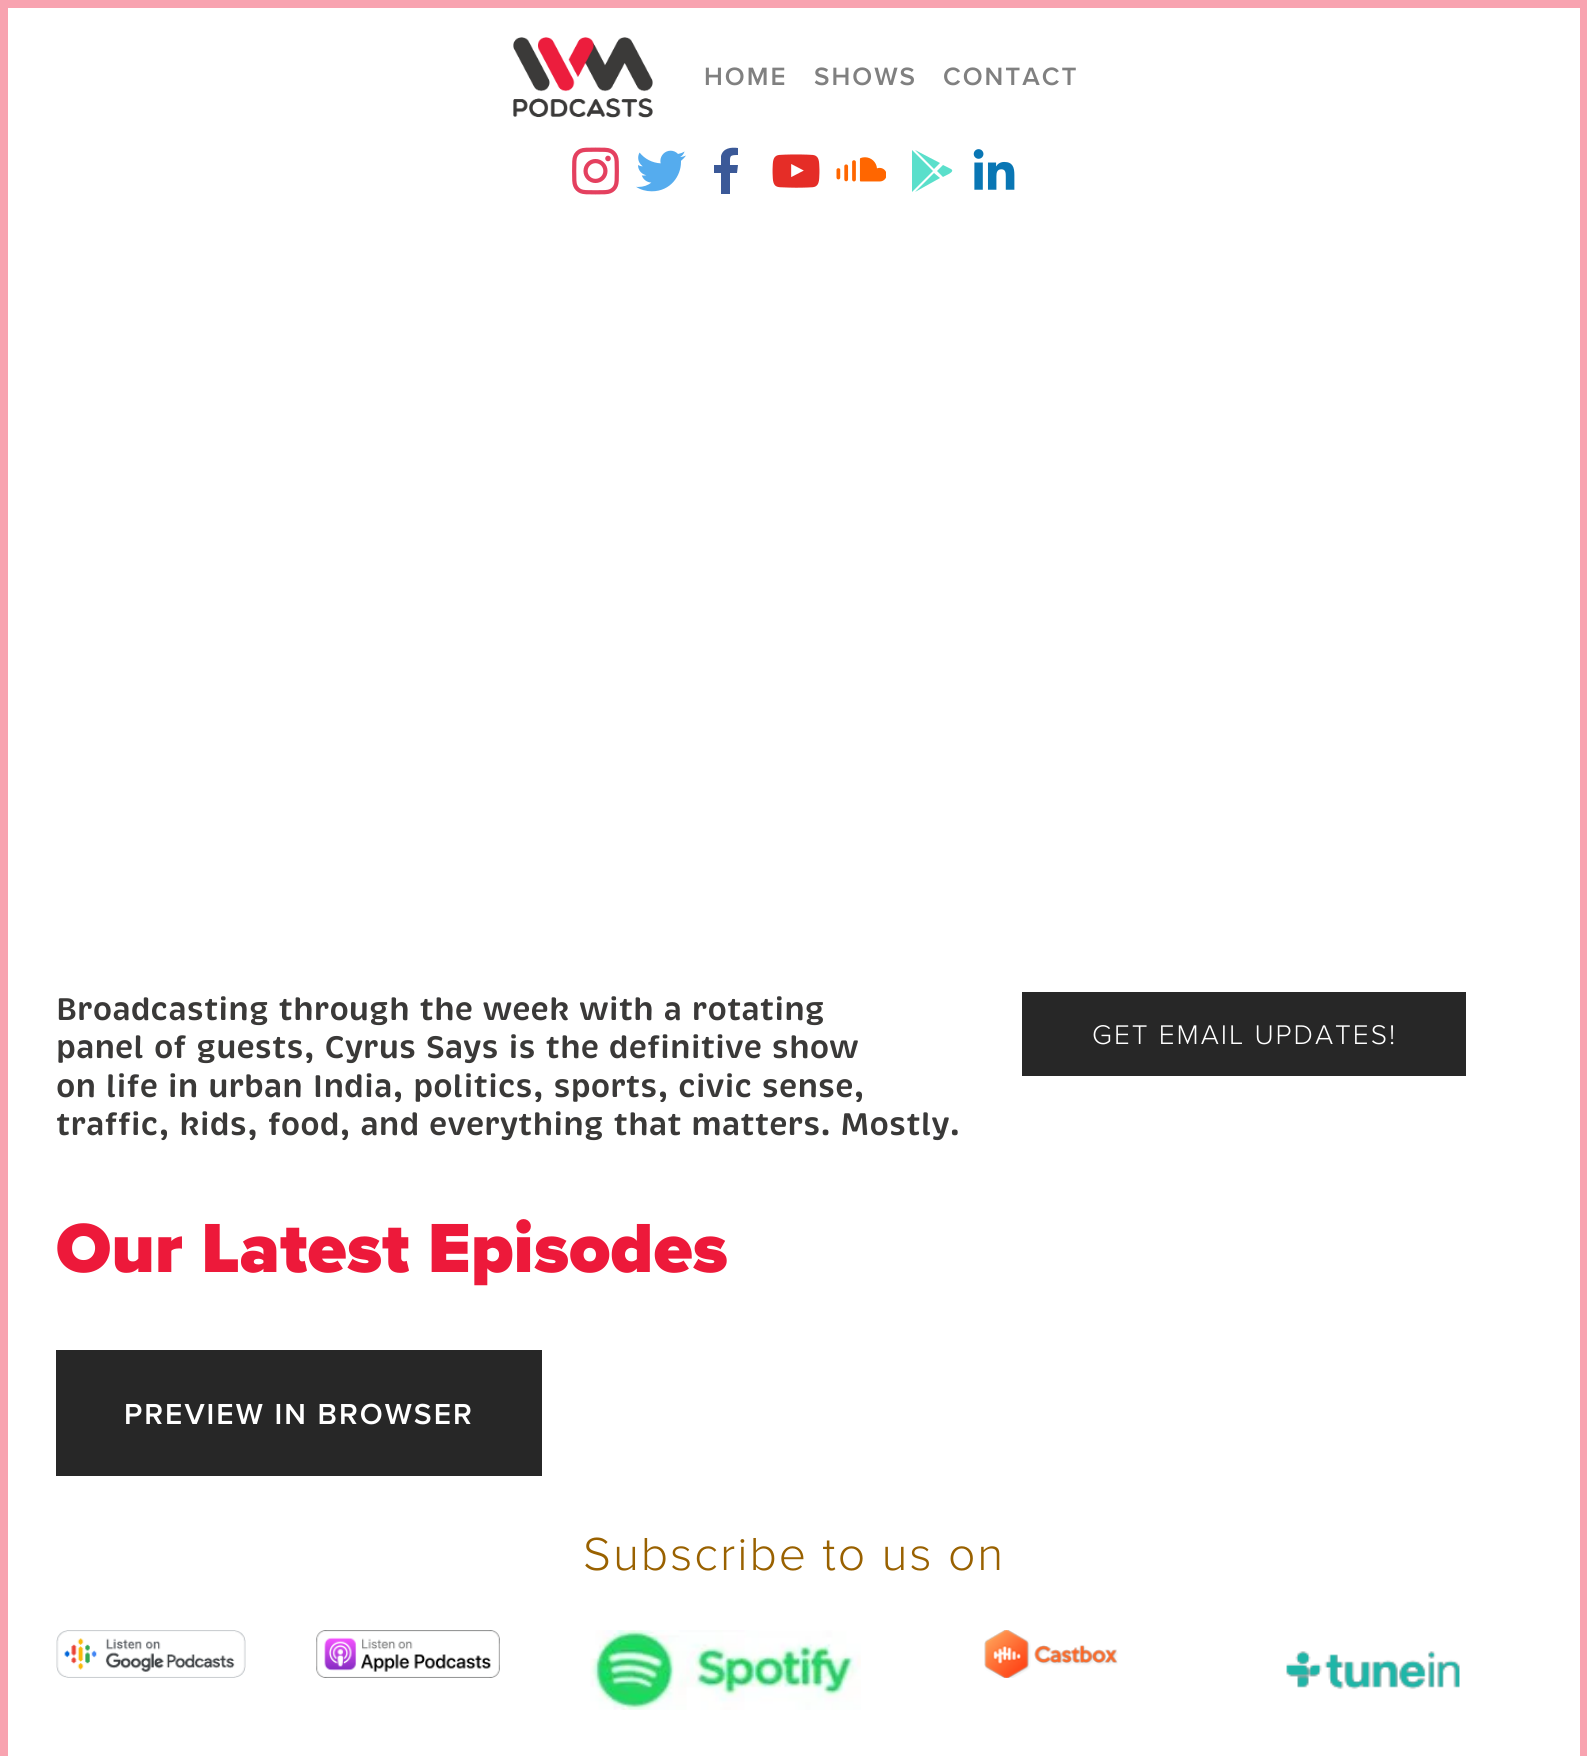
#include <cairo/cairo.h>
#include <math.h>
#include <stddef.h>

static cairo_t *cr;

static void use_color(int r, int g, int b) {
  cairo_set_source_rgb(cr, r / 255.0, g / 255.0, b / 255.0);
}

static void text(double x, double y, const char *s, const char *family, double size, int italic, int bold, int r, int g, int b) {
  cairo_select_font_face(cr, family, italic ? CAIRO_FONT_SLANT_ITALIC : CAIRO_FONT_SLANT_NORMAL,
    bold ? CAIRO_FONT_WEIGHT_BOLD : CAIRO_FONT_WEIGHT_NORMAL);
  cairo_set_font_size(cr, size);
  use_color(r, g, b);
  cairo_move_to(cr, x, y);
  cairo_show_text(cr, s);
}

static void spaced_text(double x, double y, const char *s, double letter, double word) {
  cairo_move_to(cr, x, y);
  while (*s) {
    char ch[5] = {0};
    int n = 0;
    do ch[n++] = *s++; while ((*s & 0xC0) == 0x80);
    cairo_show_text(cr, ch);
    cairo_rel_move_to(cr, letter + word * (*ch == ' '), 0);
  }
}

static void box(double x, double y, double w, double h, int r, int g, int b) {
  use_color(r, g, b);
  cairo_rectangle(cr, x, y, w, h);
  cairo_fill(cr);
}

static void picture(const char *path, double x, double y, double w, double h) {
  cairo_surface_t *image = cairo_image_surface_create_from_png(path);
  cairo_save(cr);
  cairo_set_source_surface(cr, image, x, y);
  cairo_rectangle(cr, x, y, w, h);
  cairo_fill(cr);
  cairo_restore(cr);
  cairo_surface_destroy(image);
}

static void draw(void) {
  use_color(255, 255, 255);
  cairo_paint(cr);
  cairo_rectangle(cr, 4, 4, 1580, 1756);
  use_color(248, 163, 176);
  cairo_set_line_width(cr, 8);
  cairo_stroke(cr);
  picture("img_01.png", 513, 37, 140, 81);
  picture("img_02.png", 572, 147, 47, 48);
  picture("img_03.png", 636, 150, 50, 42);
  use_color(59, 89, 152);
  cairo_new_path(cr);
  cairo_move_to(cr, 730, 194);
  cairo_line_to(cr, 730, 173);
  cairo_line_to(cr, 737, 173);
  cairo_line_to(cr, 738, 165);
  cairo_line_to(cr, 730, 165);
  cairo_curve_to(cr, 730, 156, 729, 155, 738, 155);
  cairo_line_to(cr, 738, 148);
  cairo_curve_to(cr, 731, 147, 723, 148, 721, 156);
  cairo_line_to(cr, 721, 165);
  cairo_line_to(cr, 714, 165);
  cairo_line_to(cr, 714, 173);
  cairo_line_to(cr, 721, 173);
  cairo_line_to(cr, 721, 194);
  cairo_close_path(cr);
  cairo_fill(cr);
  picture("img_04.png", 772, 154, 48, 34);
  picture("img_05.png", 836, 157, 50, 25);
  use_color(90, 223, 203);
  cairo_new_path(cr);
  cairo_move_to(cr, 915, 192);
  cairo_line_to(cr, 940, 178);
  cairo_line_to(cr, 934, 173);
  cairo_close_path(cr);
  cairo_move_to(cr, 912, 150);
  cairo_line_to(cr, 912, 192);
  cairo_line_to(cr, 933, 171);
  cairo_close_path(cr);
  cairo_move_to(cr, 951, 169);
  cairo_line_to(cr, 943, 165);
  cairo_line_to(cr, 937, 171);
  cairo_line_to(cr, 943, 177);
  cairo_curve_to(cr, 944, 176, 956, 172, 951, 169);
  cairo_close_path(cr);
  cairo_move_to(cr, 940, 163);
  cairo_line_to(cr, 915, 150);
  cairo_line_to(cr, 934, 169);
  cairo_close_path(cr);
  cairo_fill(cr);
  picture("img_06.png", 973, 149, 42, 41);
  box(1022, 992, 444, 84, 39, 39, 39);
  box(56, 1350, 486, 126, 39, 39, 39);
  picture("img_07.png", 56, 1630, 190, 48);
  picture("img_08.png", 316, 1630, 184, 48);
  picture("img_09.png", 590, 1630, 271, 80);
  picture("img_10.png", 984, 1630, 134, 48);
  picture("img_11.png", 1286, 1651, 174, 39);
  cairo_select_font_face(cr, "Proxima Nova SemiBold", CAIRO_FONT_SLANT_NORMAL, CAIRO_FONT_WEIGHT_NORMAL);
  cairo_set_font_size(cr, 26);
  use_color(128, 128, 128);
  spaced_text(704, 85, "HOME", 2, 0);
  spaced_text(814, 85, "SHOWS", 2, 0);
  spaced_text(943, 85, "CONTACT", 2, 0);
  text(56, 1020, "Broadcasting through the week with a rotating", "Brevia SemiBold", 32, 0, 0, 58, 57, 56);
  text(56, 1058, "panel of guests, Cyrus Says is the definitive show", "Brevia SemiBold", 32, 0, 0, 58, 57, 56);
  text(56, 1097, "on life in urban India, politics, sports, civic sense,", "Brevia SemiBold", 32, 0, 0, 58, 57, 56);
  text(56, 1135, "traffic, kids, food, and everything that matters. Mostly.", "Brevia SemiBold", 32, 0, 0, 58, 57, 56);
  text(56, 1272, "Our Latest Episodes", "Proxima Nova Black", 72, 0, 0, 237, 25, 58);
  cairo_select_font_face(cr, "Proxima Nova Light", CAIRO_FONT_SLANT_NORMAL, CAIRO_FONT_WEIGHT_NORMAL);
  cairo_set_font_size(cr, 28);
  use_color(255, 255, 255);
  spaced_text(1092, 1044, "GET EMAIL UPDATES!", 2, 0);
  cairo_select_font_face(cr, "Proxima Nova SemiBold", CAIRO_FONT_SLANT_NORMAL, CAIRO_FONT_WEIGHT_NORMAL);
  cairo_set_font_size(cr, 30);
  spaced_text(124, 1424, "PREVIEW IN BROWSER", 2, 0);
  cairo_select_font_face(cr, "Proxima Nova Light", CAIRO_FONT_SLANT_NORMAL, CAIRO_FONT_WEIGHT_NORMAL);
  cairo_set_font_size(cr, 48);
  use_color(153, 97, 0);
  spaced_text(583, 1570, "Subscribe to us on", 2, 0);
}

int main(void) {
  cairo_surface_t *surface = cairo_image_surface_create(CAIRO_FORMAT_RGB24, 1587, 1756);
  cr = cairo_create(surface);
  cairo_font_options_t *options = cairo_font_options_create();
  cairo_font_options_set_hint_metrics(options, CAIRO_HINT_METRICS_OFF);
  cairo_font_options_set_hint_style(options, CAIRO_HINT_STYLE_NONE);
  cairo_set_font_options(cr, options);
  cairo_set_miter_limit(cr, 4);
  draw();
  cairo_surface_write_to_png(surface, "out.png");
  cairo_font_options_destroy(options);
  cairo_destroy(cr);
  cairo_surface_destroy(surface);
  return 0;
}
